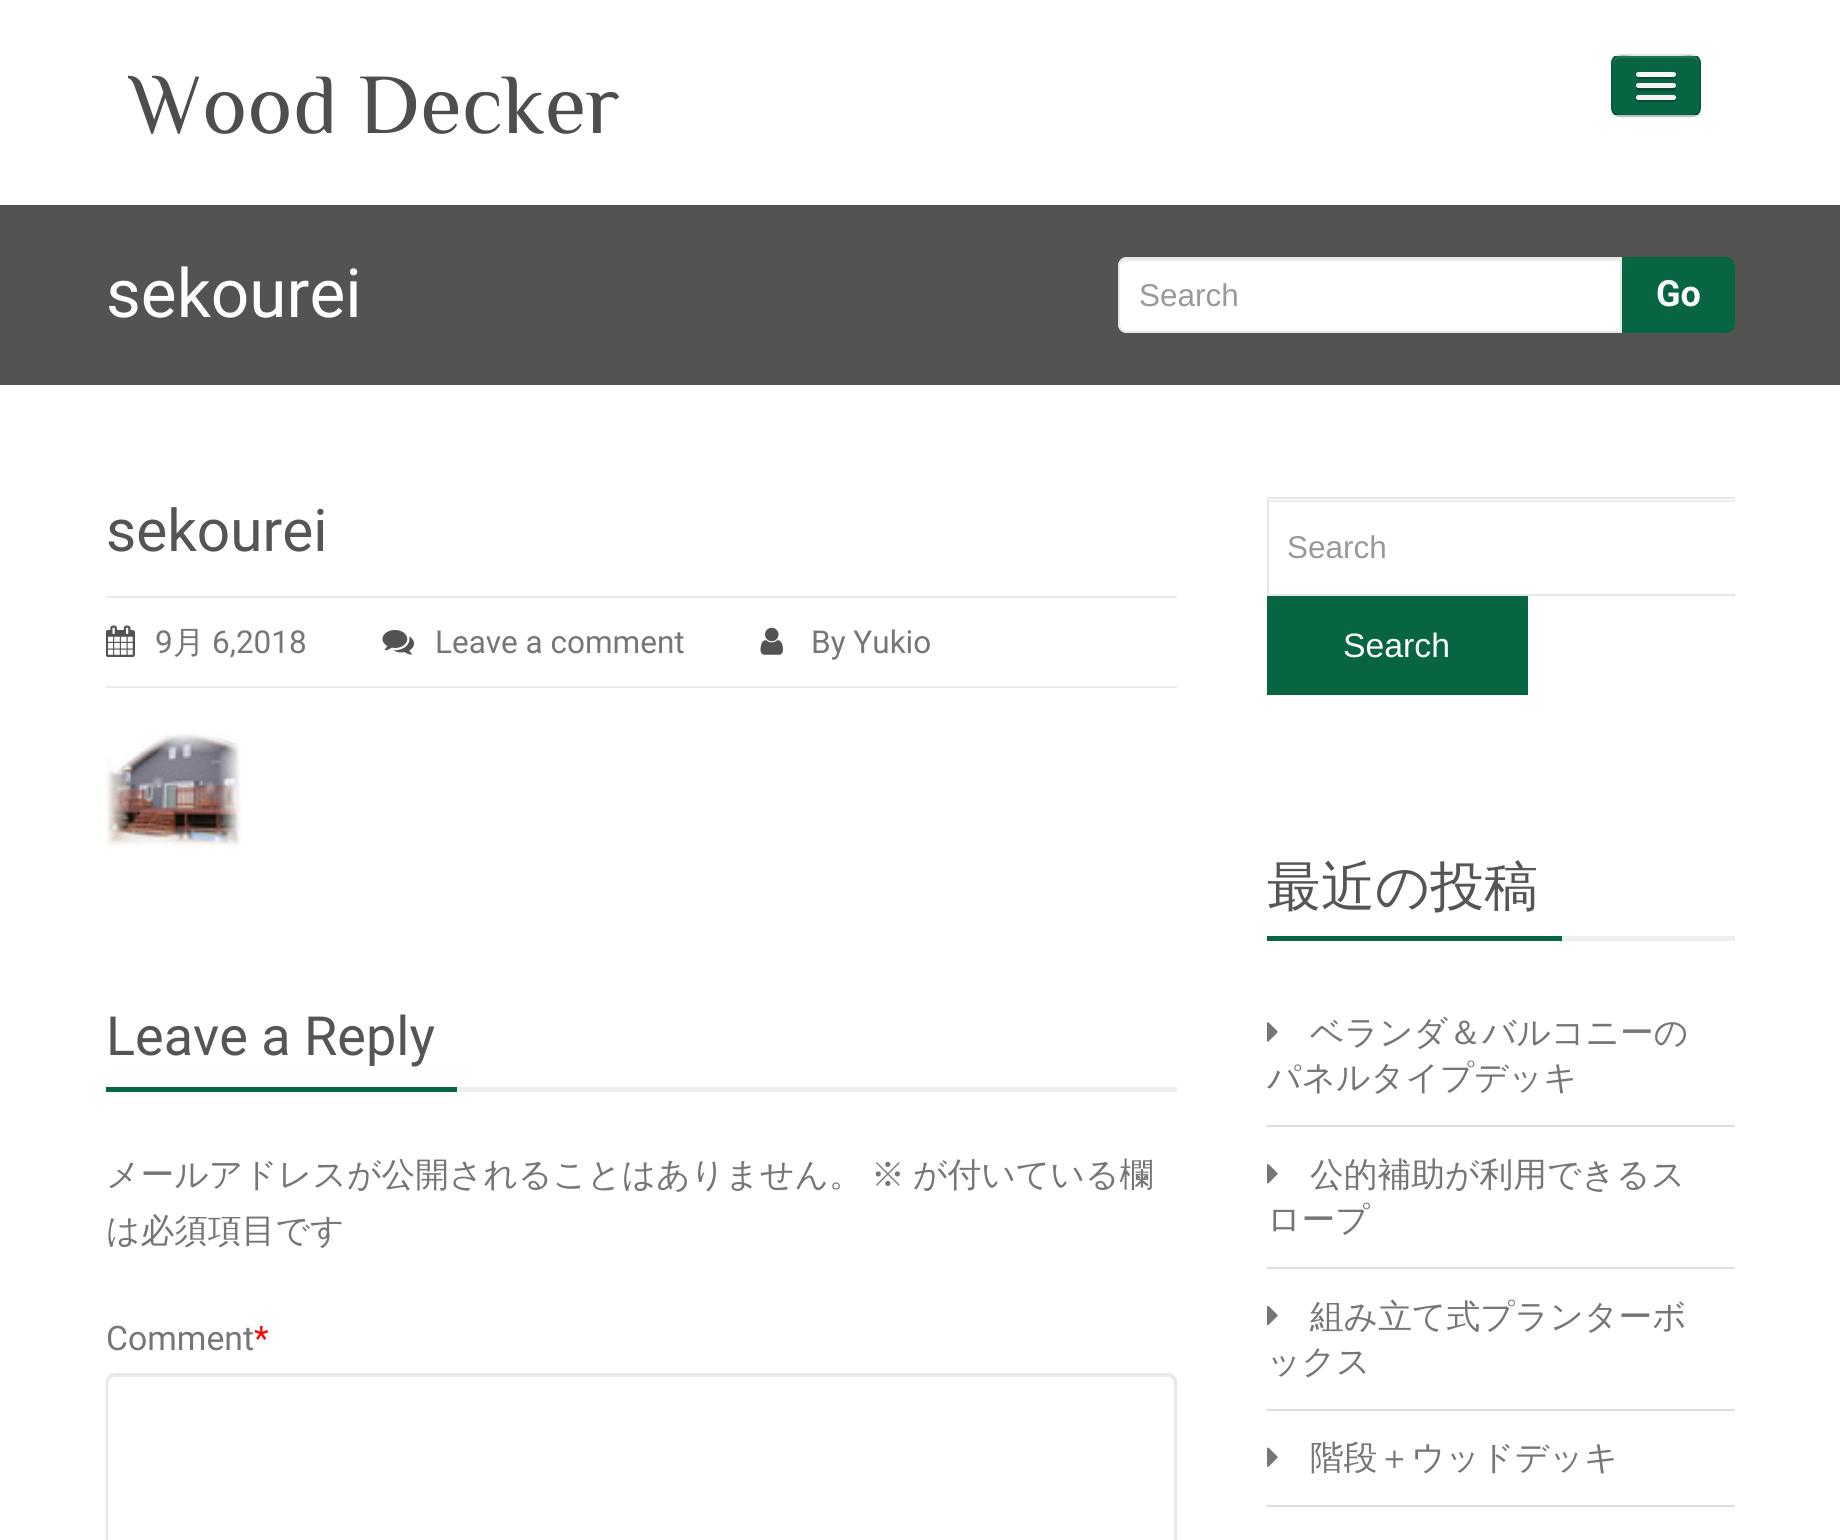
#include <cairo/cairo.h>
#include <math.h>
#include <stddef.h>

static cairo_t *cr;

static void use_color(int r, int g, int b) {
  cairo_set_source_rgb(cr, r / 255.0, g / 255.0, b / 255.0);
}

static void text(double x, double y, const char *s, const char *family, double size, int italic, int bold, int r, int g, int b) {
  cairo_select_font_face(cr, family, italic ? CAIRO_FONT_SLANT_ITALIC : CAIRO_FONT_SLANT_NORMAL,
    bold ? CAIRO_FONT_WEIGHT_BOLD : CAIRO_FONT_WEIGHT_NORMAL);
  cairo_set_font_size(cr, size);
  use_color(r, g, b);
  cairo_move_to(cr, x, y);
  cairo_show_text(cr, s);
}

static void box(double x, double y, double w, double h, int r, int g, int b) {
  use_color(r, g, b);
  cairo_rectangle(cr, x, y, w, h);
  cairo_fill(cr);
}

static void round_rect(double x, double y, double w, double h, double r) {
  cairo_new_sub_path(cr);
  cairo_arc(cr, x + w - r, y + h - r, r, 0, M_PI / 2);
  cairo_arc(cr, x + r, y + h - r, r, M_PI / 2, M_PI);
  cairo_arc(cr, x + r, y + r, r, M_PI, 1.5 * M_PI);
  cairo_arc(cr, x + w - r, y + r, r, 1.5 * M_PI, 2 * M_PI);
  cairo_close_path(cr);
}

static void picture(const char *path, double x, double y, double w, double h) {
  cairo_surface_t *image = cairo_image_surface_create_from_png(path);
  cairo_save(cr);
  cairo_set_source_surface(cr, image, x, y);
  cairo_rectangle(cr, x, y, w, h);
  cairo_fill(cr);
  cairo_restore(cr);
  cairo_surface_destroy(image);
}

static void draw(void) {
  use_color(255, 255, 255);
  cairo_paint(cr);
  cairo_save(cr);
  round_rect(1611, 54, 90, 63, 9);
  cairo_clip(cr);
  box(1611, 56, 90, 59, 7, 102, 65);
  cairo_restore(cr);
  use_color(32, 117, 84);
  cairo_new_path(cr);
  cairo_move_to(cr, 1620, 58);
  cairo_line_to(cr, 1692, 58);
  cairo_curve_to(cr, 1696, 58, 1699, 62, 1699, 65);
  cairo_curve_to(cr, 1699, 53, 1689, 56, 1680, 56);
  cairo_line_to(cr, 1632, 56);
  cairo_curve_to(cr, 1623, 56, 1613, 53, 1613, 65);
  cairo_curve_to(cr, 1613, 62, 1616, 58, 1620, 58);
  cairo_close_path(cr);
  cairo_fill(cr);
  cairo_new_path(cr);
  cairo_move_to(cr, 1697.5, 113.5);
  cairo_curve_to(cr, 1696, 115, 1694, 116, 1692, 116);
  cairo_line_to(cr, 1620, 116);
  cairo_curve_to(cr, 1618, 116, 1616, 115, 1614.5, 113.5);
  cairo_set_source_rgba(cr, 0, 0, 0, 0.25);
  cairo_set_line_width(cr, 2.2);
  cairo_stroke(cr);
  cairo_new_path(cr);
  cairo_move_to(cr, 1614.5, 113.5);
  cairo_curve_to(cr, 1613, 112, 1612, 110, 1612, 108);
  cairo_line_to(cr, 1612, 63);
  cairo_curve_to(cr, 1612, 61, 1613, 59, 1614.5, 57.5);
  cairo_curve_to(cr, 1616, 56, 1618, 55, 1620, 55);
  cairo_line_to(cr, 1692, 55);
  cairo_curve_to(cr, 1694, 55, 1696, 56, 1697.5, 57.5);
  cairo_curve_to(cr, 1699, 59, 1700, 61, 1700, 63);
  cairo_line_to(cr, 1700, 108);
  cairo_curve_to(cr, 1700, 110, 1699, 112, 1697.5, 113.5);
  cairo_set_source_rgba(cr, 0, 0, 0, 0.1);
  cairo_stroke(cr);
  use_color(5, 77, 49);
  cairo_new_path(cr);
  cairo_move_to(cr, 1636, 76);
  cairo_curve_to(cr, 1634, 80, 1643, 79, 1644, 79);
  cairo_line_to(cr, 1668, 79);
  cairo_curve_to(cr, 1669, 79, 1678, 80, 1676, 76);
  cairo_line_to(cr, 1674, 76);
  cairo_line_to(cr, 1638, 76);
  cairo_close_path(cr);
  cairo_fill(cr);
  use_color(245, 245, 245);
  round_rect(1636, 72, 40, 5, 2.5);
  cairo_fill(cr);
  use_color(5, 77, 49);
  cairo_new_path(cr);
  cairo_move_to(cr, 1636, 87);
  cairo_curve_to(cr, 1633, 92, 1644, 91, 1644, 91);
  cairo_line_to(cr, 1668, 91);
  cairo_curve_to(cr, 1668, 91, 1679, 92, 1676, 87);
  cairo_curve_to(cr, 1674, 88, 1638, 88, 1636, 87);
  cairo_close_path(cr);
  cairo_fill(cr);
  use_color(245, 245, 245);
  round_rect(1636, 83, 40, 5, 2.5);
  cairo_fill(cr);
  use_color(5, 77, 49);
  cairo_new_path(cr);
  cairo_move_to(cr, 1636, 98);
  cairo_curve_to(cr, 1634, 103, 1644, 102, 1644, 102);
  cairo_line_to(cr, 1668, 102);
  cairo_curve_to(cr, 1668, 102, 1678, 103, 1676, 98);
  cairo_curve_to(cr, 1674, 100, 1638, 100, 1636, 98);
  cairo_close_path(cr);
  cairo_fill(cr);
  use_color(245, 245, 245);
  round_rect(1636, 95, 40, 5, 2.5);
  cairo_fill(cr);
  box(0, 205, 1840, 180, 83, 83, 84);
  use_color(255, 255, 255);
  cairo_new_path(cr);
  cairo_move_to(cr, 1127, 257);
  cairo_line_to(cr, 1622, 257);
  cairo_line_to(cr, 1622, 333);
  cairo_line_to(cr, 1127, 333);
  cairo_curve_to(cr, 1122, 333, 1118, 329, 1118, 324);
  cairo_line_to(cr, 1118, 266);
  cairo_curve_to(cr, 1118, 261, 1122, 257, 1127, 257);
  cairo_close_path(cr);
  cairo_fill(cr);
  use_color(236, 236, 236);
  cairo_new_path(cr);
  cairo_move_to(cr, 1127, 261);
  cairo_line_to(cr, 1620, 261);
  cairo_line_to(cr, 1620, 259);
  cairo_line_to(cr, 1128, 259);
  cairo_curve_to(cr, 1125, 259, 1122, 261, 1121, 264);
  cairo_curve_to(cr, 1123, 262, 1125, 261, 1127, 261);
  cairo_close_path(cr);
  cairo_fill(cr);
  cairo_new_path(cr);
  cairo_move_to(cr, 1127, 258);
  cairo_line_to(cr, 1621, 258);
  cairo_line_to(cr, 1621, 332);
  cairo_line_to(cr, 1127, 332);
  cairo_curve_to(cr, 1122.5, 332, 1119, 328.5, 1119, 324);
  cairo_line_to(cr, 1119, 266);
  cairo_curve_to(cr, 1119, 261.5, 1122.5, 258, 1127, 258);
  cairo_close_path(cr);
  use_color(228, 232, 234);
  cairo_set_line_width(cr, 2);
  cairo_stroke(cr);
  use_color(7, 102, 65);
  cairo_new_path(cr);
  cairo_move_to(cr, 1622, 257);
  cairo_line_to(cr, 1726, 257);
  cairo_curve_to(cr, 1731, 257, 1735, 261, 1735, 266);
  cairo_line_to(cr, 1735, 324);
  cairo_curve_to(cr, 1735, 329, 1731, 333, 1726, 333);
  cairo_line_to(cr, 1622, 333);
  cairo_close_path(cr);
  cairo_fill(cr);
  box(106, 596, 1071, 2, 235, 234, 234);
  box(106, 686, 1071, 2, 235, 234, 234);
  picture("img_01.png", 106, 625, 29, 32);
  picture("img_02.png", 382, 630, 32, 25);
  picture("img_03.png", 760, 627, 23, 28);
  picture("img_04.png", 106, 733, 135, 113);
  box(457, 1087, 720, 5, 238, 238, 238);
  box(106, 1087, 351, 5, 7, 102, 65);
  use_color(236, 236, 236);
  cairo_new_path(cr);
  cairo_move_to(cr, 115, 1377);
  cairo_line_to(cr, 1168, 1377);
  cairo_curve_to(cr, 1171, 1377, 1174, 1380, 1174, 1384);
  cairo_line_to(cr, 1174, 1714);
  cairo_curve_to(cr, 1175, 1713, 1175, 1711, 1175, 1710);
  cairo_line_to(cr, 1175, 1382);
  cairo_curve_to(cr, 1175, 1378, 1172, 1375, 1168, 1375);
  cairo_line_to(cr, 115, 1375);
  cairo_curve_to(cr, 111, 1375, 108, 1378, 108, 1382);
  cairo_line_to(cr, 108, 1384);
  cairo_curve_to(cr, 108, 1380, 111, 1377, 115, 1377);
  cairo_close_path(cr);
  cairo_fill(cr);
  round_rect(107, 1374, 1069, 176, 8);
  use_color(228, 232, 234);
  cairo_stroke(cr);
  box(1269, 500, 466, 2, 236, 236, 236);
  cairo_save(cr);
  cairo_rectangle(cr, 1267, 497, 468, 243);
  cairo_clip(cr);
  cairo_rectangle(cr, 1268, 498, 502, 97);
  use_color(228, 232, 234);
  cairo_stroke(cr);
  cairo_restore(cr);
  box(1267, 596, 261, 99, 7, 102, 65);
  box(1562, 936, 173, 5, 238, 238, 238);
  box(1267, 936, 295, 5, 7, 102, 65);
  box(1267, 1125, 468, 2, 222, 222, 222);
  picture("img_05.png", 1267, 1022, 11, 20);
  box(1267, 1267, 468, 2, 222, 222, 222);
  picture("img_06.png", 1267, 1164, 11, 20);
  box(1267, 1409, 468, 2, 222, 222, 222);
  picture("img_07.png", 1267, 1305, 11, 20);
  box(1267, 1505, 468, 2, 222, 222, 222);
  picture("img_08.png", 1267, 1447, 11, 20);
  cairo_save(cr);
  cairo_rectangle(cr, 128, 32, 493, 119);
  cairo_clip(cr);
  text(128, 133, "Wood Decker", "Philosopher", 85.5, 0, 0, 77, 78, 79);
  cairo_restore(cr);
  text(106, 317, "sekourei", "Roboto", 67.5, 0, 0, 255, 255, 255);
  text(1139, 306, "Search", "Liberation Sans", 31.5, 0, 0, 153, 153, 153);
  text(1656, 306, "Go", "Roboto", 36, 0, 1, 255, 255, 255);
  text(106, 551, "sekourei", "Roboto", 58.5, 0, 0, 85, 85, 85);
  text(155, 653, "9", "Roboto", 31.5, 0, 0, 118, 118, 118);
  text(173, 653, "月", "WenQuanYi Zen Hei Medium", 31.5, 0, 0, 118, 118, 118);
  text(212, 653, "6,2018", "Roboto", 31.5, 0, 0, 118, 118, 118);
  text(435, 653, "Leave a comment", "Roboto", 31.5, 0, 0, 118, 118, 118);
  text(811, 653, "By Yukio", "Roboto", 31.5, 0, 0, 118, 118, 118);
  text(106, 1055, "Leave a Reply", "Roboto", 54, 0, 0, 85, 85, 85);
  text(106, 1186, "メールアドレスが公開されることはありません。", "WenQuanYi Zen Hei Medium", 33.75, 0, 0, 118, 118, 118);
  text(871, 1186, "※", "WenQuanYi Zen Hei Medium", 33.75, 0, 0, 118, 118, 118);
  text(913, 1186, "が付いている欄", "WenQuanYi Zen Hei Medium", 33.75, 0, 0, 118, 118, 118);
  text(106, 1242, "は必須項目です", "WenQuanYi Zen Hei Medium", 33.75, 0, 0, 118, 118, 118);
  text(106, 1350, "Comment", "Roboto", 33.75, 0, 0, 118, 118, 118);
  text(254, 1350, "*", "Roboto", 33.75, 0, 0, 255, 0, 0);
  text(1287, 558, "Search", "Liberation Sans", 31.5, 0, 0, 153, 153, 153);
  text(1343, 657, "Search", "Liberation Sans", 33.75, 0, 0, 255, 255, 255);
  text(1267, 905, "最近の投稿", "WenQuanYi Zen Hei Medium", 54, 0, 0, 85, 85, 85);
  text(1310, 1044, "ベランダ＆バルコニーの", "WenQuanYi Zen Hei Medium", 33.75, 0, 0, 118, 118, 118);
  text(1267, 1089, "パネルタイプデッキ", "WenQuanYi Zen Hei Medium", 33.75, 0, 0, 118, 118, 118);
  text(1310, 1186, "公的補助が利用できるス", "WenQuanYi Zen Hei Medium", 33.75, 0, 0, 118, 118, 118);
  text(1267, 1231, "ロープ", "WenQuanYi Zen Hei Medium", 33.75, 0, 0, 118, 118, 118);
  text(1310, 1328, "組み立て式プランターボ", "WenQuanYi Zen Hei Medium", 33.75, 0, 0, 118, 118, 118);
  text(1267, 1373, "ックス", "WenQuanYi Zen Hei Medium", 33.75, 0, 0, 118, 118, 118);
  text(1310, 1469, "階段＋ウッドデッキ", "WenQuanYi Zen Hei Medium", 33.75, 0, 0, 118, 118, 118);
}

int main(void) {
  cairo_surface_t *surface = cairo_image_surface_create(CAIRO_FORMAT_RGB24, 1840, 1540);
  cr = cairo_create(surface);
  cairo_font_options_t *options = cairo_font_options_create();
  cairo_font_options_set_hint_metrics(options, CAIRO_HINT_METRICS_OFF);
  cairo_font_options_set_hint_style(options, CAIRO_HINT_STYLE_NONE);
  cairo_set_font_options(cr, options);
  cairo_set_miter_limit(cr, 4);
  draw();
  cairo_surface_write_to_png(surface, "out.png");
  cairo_font_options_destroy(options);
  cairo_destroy(cr);
  cairo_surface_destroy(surface);
  return 0;
}
